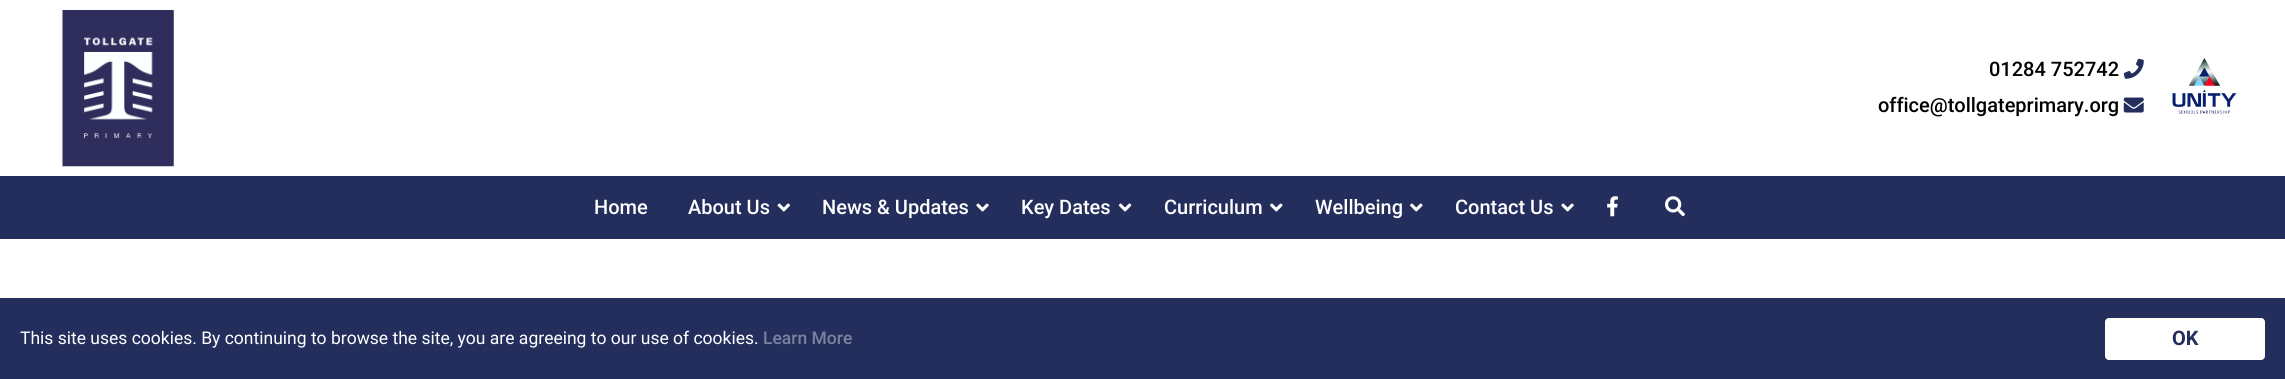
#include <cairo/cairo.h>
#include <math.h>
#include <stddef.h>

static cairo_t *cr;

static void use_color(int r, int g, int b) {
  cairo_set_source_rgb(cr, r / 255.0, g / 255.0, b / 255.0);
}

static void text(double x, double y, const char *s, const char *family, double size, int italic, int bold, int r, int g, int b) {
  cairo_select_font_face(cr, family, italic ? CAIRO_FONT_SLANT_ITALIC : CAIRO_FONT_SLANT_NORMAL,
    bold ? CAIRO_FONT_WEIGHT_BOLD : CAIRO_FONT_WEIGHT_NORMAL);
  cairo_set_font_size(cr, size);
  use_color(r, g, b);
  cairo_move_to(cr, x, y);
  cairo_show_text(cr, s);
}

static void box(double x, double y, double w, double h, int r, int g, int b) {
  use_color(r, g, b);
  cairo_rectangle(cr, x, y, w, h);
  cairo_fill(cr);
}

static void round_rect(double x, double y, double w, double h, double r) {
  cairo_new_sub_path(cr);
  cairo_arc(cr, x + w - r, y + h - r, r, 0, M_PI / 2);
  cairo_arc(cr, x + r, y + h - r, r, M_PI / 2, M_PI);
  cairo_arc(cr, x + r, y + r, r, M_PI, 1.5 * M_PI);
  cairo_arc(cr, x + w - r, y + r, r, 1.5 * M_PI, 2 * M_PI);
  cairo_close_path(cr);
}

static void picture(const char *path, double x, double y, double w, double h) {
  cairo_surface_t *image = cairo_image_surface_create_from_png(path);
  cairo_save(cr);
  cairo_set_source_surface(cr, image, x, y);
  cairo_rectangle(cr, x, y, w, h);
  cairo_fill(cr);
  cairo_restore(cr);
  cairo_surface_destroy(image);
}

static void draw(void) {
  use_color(255, 255, 255);
  cairo_paint(cr);
  picture("img_01.png", 62, 10, 112, 157);
  picture("img_02.png", 2123, 58, 21, 21);
  picture("img_03.png", 2123, 97, 21, 16);
  picture("img_04.png", 2172, 58, 65, 56);
  box(0, 176, 2285, 63, 35, 46, 93);
  picture("img_05.png", 777, 203, 13, 9);
  picture("img_06.png", 976, 203, 13, 9);
  picture("img_07.png", 1118, 203, 14, 9);
  picture("img_08.png", 1270, 203, 13, 9);
  picture("img_08.png", 1410, 203, 13, 9);
  picture("img_06.png", 1561, 203, 13, 9);
  picture("img_09.png", 1607, 196, 11, 21);
  picture("img_10.png", 1665, 196, 20, 21);
  box(0, 298, 2285, 81, 35, 46, 93);
  use_color(255, 255, 255);
  round_rect(2105, 318, 160, 42, 4);
  cairo_fill(cr);
  text(1989, 76, "01284 752742", "Roboto Medium", 20, 0, 0, 0, 0, 0);
  text(1878, 112, "office@tollgateprimary.org", "Roboto Medium", 20, 0, 0, 0, 0, 0);
  text(594, 214, "Home", "Roboto Medium", 20, 0, 0, 255, 255, 255);
  text(688, 214, "About Us", "Roboto Medium", 20, 0, 0, 255, 255, 255);
  text(822, 214, "News & Updates", "Roboto Medium", 20, 0, 0, 255, 255, 255);
  text(1021, 214, "Key Dates", "Roboto Medium", 20, 0, 0, 255, 255, 255);
  text(1164, 214, "Curriculum", "Roboto Medium", 20, 0, 0, 255, 255, 255);
  text(1315, 214, "Wellbeing", "Roboto Medium", 20, 0, 0, 255, 255, 255);
  text(1455, 214, "Contact Us", "Roboto Medium", 20, 0, 0, 255, 255, 255);
  text(20, 344, "This site uses cookies. By continuing to browse the site, you are agreeing to our use of cookies.", "Roboto", 17.5, 0, 0, 255, 255, 255);
  text(763, 344, "Learn More", "Roboto Medium", 17.5, 0, 0, 123, 130, 158);
  text(2172, 345, "OK", "Roboto", 20, 0, 1, 35, 46, 93);
}

int main(void) {
  cairo_surface_t *surface = cairo_image_surface_create(CAIRO_FORMAT_RGB24, 2285, 379);
  cr = cairo_create(surface);
  cairo_font_options_t *options = cairo_font_options_create();
  cairo_font_options_set_hint_metrics(options, CAIRO_HINT_METRICS_OFF);
  cairo_font_options_set_hint_style(options, CAIRO_HINT_STYLE_NONE);
  cairo_set_font_options(cr, options);
  cairo_set_miter_limit(cr, 4);
  draw();
  cairo_surface_write_to_png(surface, "out.png");
  cairo_font_options_destroy(options);
  cairo_destroy(cr);
  cairo_surface_destroy(surface);
  return 0;
}
